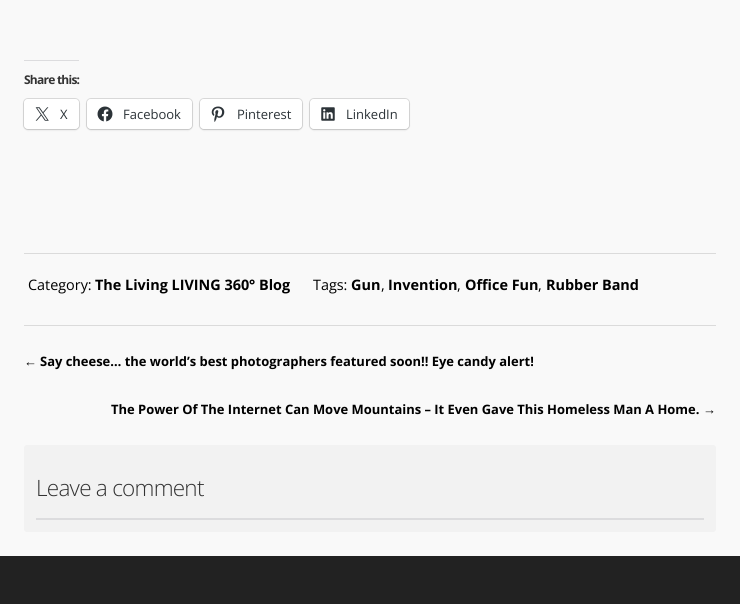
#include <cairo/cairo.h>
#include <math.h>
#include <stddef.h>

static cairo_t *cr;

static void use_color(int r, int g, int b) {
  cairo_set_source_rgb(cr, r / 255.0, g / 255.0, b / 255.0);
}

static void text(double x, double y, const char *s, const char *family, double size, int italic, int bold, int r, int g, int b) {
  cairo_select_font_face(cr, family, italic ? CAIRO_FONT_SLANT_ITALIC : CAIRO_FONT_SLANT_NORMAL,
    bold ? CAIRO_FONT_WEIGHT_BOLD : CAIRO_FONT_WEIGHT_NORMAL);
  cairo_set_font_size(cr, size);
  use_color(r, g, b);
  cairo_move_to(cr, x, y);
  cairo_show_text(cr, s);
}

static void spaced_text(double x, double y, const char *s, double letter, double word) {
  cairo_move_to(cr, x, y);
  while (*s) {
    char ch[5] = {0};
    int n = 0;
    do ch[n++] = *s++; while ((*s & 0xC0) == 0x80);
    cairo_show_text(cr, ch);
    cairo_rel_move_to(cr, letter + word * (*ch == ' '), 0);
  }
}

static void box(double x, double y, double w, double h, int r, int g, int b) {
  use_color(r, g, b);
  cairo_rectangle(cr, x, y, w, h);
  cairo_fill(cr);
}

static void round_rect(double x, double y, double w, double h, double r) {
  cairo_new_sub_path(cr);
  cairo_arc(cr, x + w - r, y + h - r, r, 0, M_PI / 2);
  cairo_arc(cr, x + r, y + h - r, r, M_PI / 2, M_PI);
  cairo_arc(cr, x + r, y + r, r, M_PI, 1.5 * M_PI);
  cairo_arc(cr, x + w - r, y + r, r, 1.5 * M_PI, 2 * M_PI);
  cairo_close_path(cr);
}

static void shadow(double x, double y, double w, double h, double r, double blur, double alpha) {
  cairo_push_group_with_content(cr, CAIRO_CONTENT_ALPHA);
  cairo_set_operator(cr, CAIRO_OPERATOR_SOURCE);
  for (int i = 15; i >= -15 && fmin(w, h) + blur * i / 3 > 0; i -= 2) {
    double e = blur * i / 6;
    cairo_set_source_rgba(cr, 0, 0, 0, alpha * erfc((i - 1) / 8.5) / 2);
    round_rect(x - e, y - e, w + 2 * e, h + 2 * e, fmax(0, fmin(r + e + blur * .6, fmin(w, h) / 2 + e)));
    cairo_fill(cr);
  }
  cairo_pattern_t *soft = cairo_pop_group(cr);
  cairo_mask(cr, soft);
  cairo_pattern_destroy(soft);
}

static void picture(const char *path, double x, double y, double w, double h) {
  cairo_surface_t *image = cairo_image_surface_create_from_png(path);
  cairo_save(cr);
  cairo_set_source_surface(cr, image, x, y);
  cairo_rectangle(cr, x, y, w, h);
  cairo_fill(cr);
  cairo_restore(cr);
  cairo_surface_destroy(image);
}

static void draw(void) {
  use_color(249, 249, 249);
  cairo_paint(cr);
  box(24, 60, 55, 1, 220, 220, 222);
  round_rect(23.5, 98.5, 56, 31, 4.5);
  use_color(219, 219, 219);
  cairo_set_line_width(cr, 1);
  cairo_stroke(cr);
  use_color(0, 0, 0);
  shadow(24, 100, 55, 30, 4, 1, 0.12);
  use_color(255, 255, 255);
  round_rect(24, 99, 55, 30, 4);
  cairo_fill(cr);
  picture("img_01.png", 35, 107, 14, 14);
  round_rect(86.5, 98.5, 106, 31, 4.5);
  use_color(219, 219, 219);
  cairo_stroke(cr);
  use_color(0, 0, 0);
  shadow(87, 100, 105, 30, 4, 1, 0.12);
  use_color(255, 255, 255);
  round_rect(87, 99, 105, 30, 4);
  cairo_fill(cr);
  picture("img_02.png", 97, 106, 16, 16);
  round_rect(199.5, 98.5, 103, 31, 4.5);
  use_color(219, 219, 219);
  cairo_stroke(cr);
  use_color(0, 0, 0);
  shadow(200, 100, 102, 30, 4, 1, 0.12);
  use_color(255, 255, 255);
  round_rect(200, 99, 102, 30, 4);
  cairo_fill(cr);
  picture("img_03.png", 211, 106, 14, 16);
  round_rect(309.5, 98.5, 100, 31, 4.5);
  use_color(219, 219, 219);
  cairo_stroke(cr);
  use_color(0, 0, 0);
  shadow(310, 100, 99, 30, 4, 1, 0.12);
  use_color(255, 255, 255);
  round_rect(310, 99, 99, 30, 4);
  cairo_fill(cr);
  picture("img_04.png", 321, 107, 14, 14);
  box(24, 253, 692, 1, 219, 219, 219);
  box(24, 325, 692, 1, 219, 219, 219);
  use_color(242, 242, 242);
  round_rect(24, 445, 692, 87, 3);
  cairo_fill(cr);
  box(36, 518, 668, 2, 220, 220, 222);
  box(0, 556, 740, 48, 34, 34, 34);
  cairo_select_font_face(cr, "Open Sans", CAIRO_FONT_SLANT_NORMAL, CAIRO_FONT_WEIGHT_BOLD);
  cairo_set_font_size(cr, 12);
  use_color(51, 51, 51);
  spaced_text(24, 84, "Share this:", -0.75, 0);
  text(60, 119, "X", "Open Sans", 13, 0, 0, 44, 51, 56);
  text(123, 119, "Facebook", "Open Sans", 13, 0, 0, 44, 51, 56);
  text(237, 119, "Pinterest", "Open Sans", 13, 0, 0, 44, 51, 56);
  text(346, 119, "LinkedIn", "Open Sans", 13, 0, 0, 44, 51, 56);
  text(28, 290, "Category:", "Open Sans", 14.4, 0, 0, 0, 0, 0);
  text(95, 290, "The Living LIVING 360° Blog", "Open Sans", 14.4, 0, 1, 0, 0, 0);
  text(313, 290, "Tags:", "Open Sans", 14.4, 0, 0, 0, 0, 0);
  text(351, 290, "Gun", "Open Sans", 14.4, 0, 1, 0, 0, 0);
  text(381, 290, ",", "Open Sans", 14.4, 0, 0, 0, 0, 0);
  text(388, 290, "Invention", "Open Sans", 14.4, 0, 1, 0, 0, 0);
  text(457, 290, ",", "Open Sans", 14.4, 0, 0, 0, 0, 0);
  text(465, 290, "Office Fun", "Open Sans", 14.4, 0, 1, 0, 0, 0);
  text(538, 290, ",", "Open Sans", 14.4, 0, 0, 0, 0, 0);
  text(546, 290, "Rubber Band", "Open Sans", 14.4, 0, 1, 0, 0, 0);
  text(24, 366, "←", "Liberation Sans", 12.95, 0, 0, 0, 0, 0);
  text(40, 366, "Say cheese… the world’s best photographers featured soon!! Eye candy alert!", "Open Sans", 12.95, 0, 1, 0, 0, 0);
  text(111, 414, "The Power Of The Internet Can Move Mountains – It Even Gave This Homeless Man A Home.", "Open Sans", 12.95, 0, 1, 0, 0, 0);
  text(703, 414, "→", "Liberation Sans", 12.95, 0, 0, 0, 0, 0);
  cairo_select_font_face(cr, "Open Sans Light", CAIRO_FONT_SLANT_NORMAL, CAIRO_FONT_WEIGHT_NORMAL);
  cairo_set_font_size(cr, 22.5);
  use_color(51, 51, 51);
  spaced_text(36, 496, "Leave a comment", -0.75, 0);
}

int main(void) {
  cairo_surface_t *surface = cairo_image_surface_create(CAIRO_FORMAT_RGB24, 740, 604);
  cr = cairo_create(surface);
  cairo_font_options_t *options = cairo_font_options_create();
  cairo_font_options_set_hint_metrics(options, CAIRO_HINT_METRICS_OFF);
  cairo_font_options_set_hint_style(options, CAIRO_HINT_STYLE_NONE);
  cairo_set_font_options(cr, options);
  cairo_set_miter_limit(cr, 4);
  draw();
  cairo_surface_write_to_png(surface, "out.png");
  cairo_font_options_destroy(options);
  cairo_destroy(cr);
  cairo_surface_destroy(surface);
  return 0;
}
